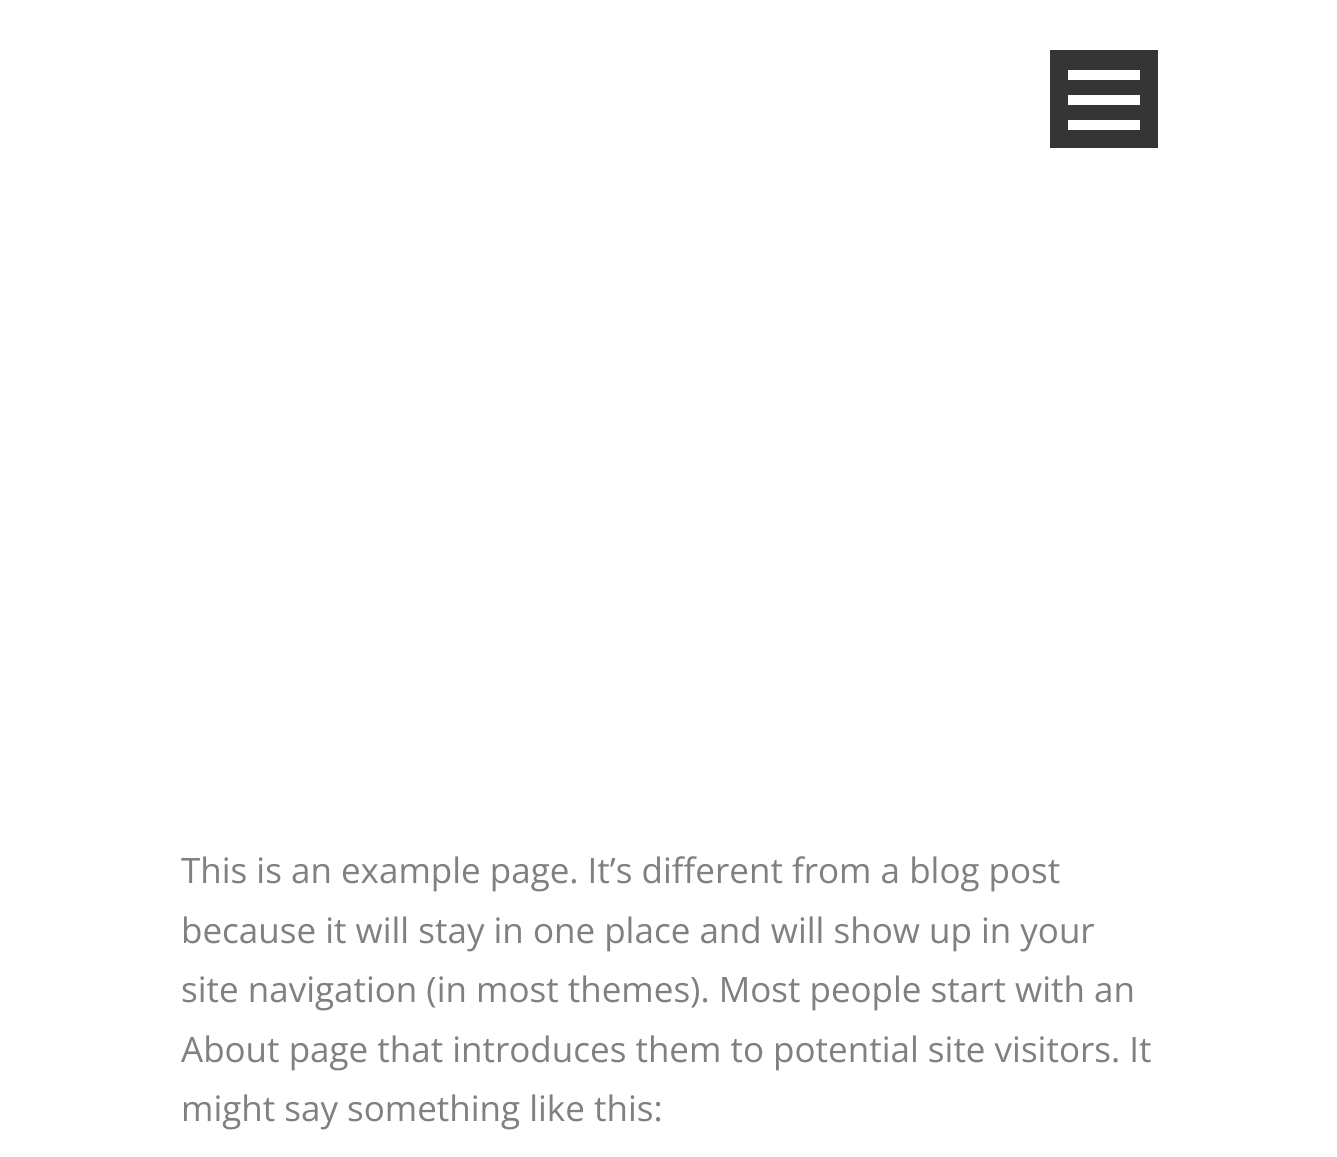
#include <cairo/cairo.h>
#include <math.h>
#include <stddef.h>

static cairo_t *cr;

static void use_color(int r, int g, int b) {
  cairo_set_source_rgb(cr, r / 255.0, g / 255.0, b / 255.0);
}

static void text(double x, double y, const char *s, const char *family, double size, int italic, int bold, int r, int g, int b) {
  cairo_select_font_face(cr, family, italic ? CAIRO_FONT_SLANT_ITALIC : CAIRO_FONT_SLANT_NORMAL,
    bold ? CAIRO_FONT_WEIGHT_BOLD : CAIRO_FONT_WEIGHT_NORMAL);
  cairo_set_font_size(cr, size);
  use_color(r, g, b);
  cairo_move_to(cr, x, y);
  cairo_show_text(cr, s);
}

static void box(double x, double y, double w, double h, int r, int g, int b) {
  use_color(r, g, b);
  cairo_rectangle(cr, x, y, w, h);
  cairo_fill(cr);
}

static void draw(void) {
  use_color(255, 255, 255);
  cairo_paint(cr);
  box(1050, 50, 108, 98, 53, 53, 53);
  box(1068, 120, 72, 10, 255, 255, 255);
  box(1068, 95, 72, 10, 255, 255, 255);
  box(1068, 70, 72, 10, 255, 255, 255);
  text(181, 883, "This is an example page. It’s different from a blog post", "Open Sans", 35, 0, 0, 128, 128, 128);
  text(181, 943, "because it will stay in one place and will show up in your", "Open Sans", 35, 0, 0, 128, 128, 128);
  text(181, 1002, "site navigation (in most themes). Most people start with an", "Open Sans", 35, 0, 0, 128, 128, 128);
  text(181, 1062, "About page that introduces them to potential site visitors. It", "Open Sans", 35, 0, 0, 128, 128, 128);
  text(181, 1121, "might say something like this:", "Open Sans", 35, 0, 0, 128, 128, 128);
}

int main(void) {
  cairo_surface_t *surface = cairo_image_surface_create(CAIRO_FORMAT_RGB24, 1337, 1157);
  cr = cairo_create(surface);
  cairo_font_options_t *options = cairo_font_options_create();
  cairo_font_options_set_hint_metrics(options, CAIRO_HINT_METRICS_OFF);
  cairo_font_options_set_hint_style(options, CAIRO_HINT_STYLE_NONE);
  cairo_set_font_options(cr, options);
  cairo_set_miter_limit(cr, 4);
  draw();
  cairo_surface_write_to_png(surface, "out.png");
  cairo_font_options_destroy(options);
  cairo_destroy(cr);
  cairo_surface_destroy(surface);
  return 0;
}
